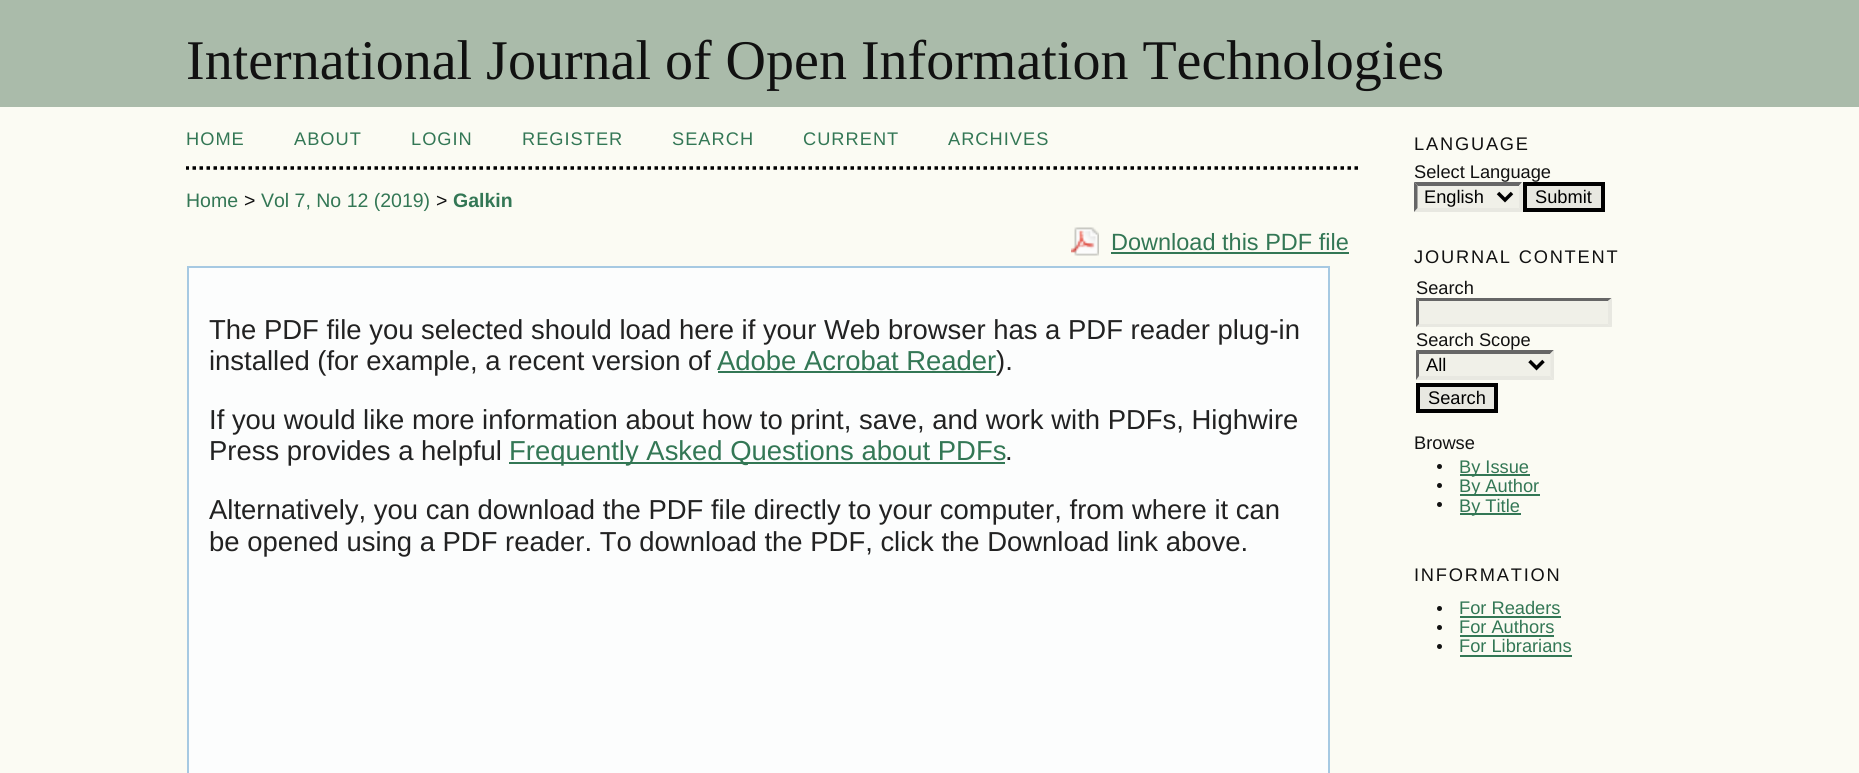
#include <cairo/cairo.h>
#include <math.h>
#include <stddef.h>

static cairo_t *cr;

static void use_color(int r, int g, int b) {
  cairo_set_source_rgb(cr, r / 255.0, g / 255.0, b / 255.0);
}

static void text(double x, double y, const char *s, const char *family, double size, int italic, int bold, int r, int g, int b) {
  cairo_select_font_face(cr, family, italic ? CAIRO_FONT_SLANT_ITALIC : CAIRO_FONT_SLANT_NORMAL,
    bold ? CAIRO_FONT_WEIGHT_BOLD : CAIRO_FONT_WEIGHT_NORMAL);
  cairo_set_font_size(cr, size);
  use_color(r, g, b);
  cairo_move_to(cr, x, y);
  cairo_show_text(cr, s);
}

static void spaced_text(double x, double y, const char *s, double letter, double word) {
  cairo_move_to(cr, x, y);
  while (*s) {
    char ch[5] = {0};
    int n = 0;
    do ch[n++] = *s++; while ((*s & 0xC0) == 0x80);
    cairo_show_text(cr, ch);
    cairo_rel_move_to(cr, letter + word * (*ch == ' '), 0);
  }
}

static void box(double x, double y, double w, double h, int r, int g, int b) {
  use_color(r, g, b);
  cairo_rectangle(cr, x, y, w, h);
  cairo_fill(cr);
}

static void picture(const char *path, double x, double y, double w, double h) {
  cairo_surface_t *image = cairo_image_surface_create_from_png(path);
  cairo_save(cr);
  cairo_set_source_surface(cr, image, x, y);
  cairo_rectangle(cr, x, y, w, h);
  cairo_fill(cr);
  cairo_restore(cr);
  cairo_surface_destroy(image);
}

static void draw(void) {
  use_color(251, 251, 243);
  cairo_paint(cr);
  box(0, 0, 1859, 107, 170, 187, 170);
  cairo_save(cr);
  cairo_rectangle(cr, 186, 107, 1172, 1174);
  cairo_clip(cr);
  cairo_new_path(cr);
  cairo_move_to(cr, 185.5, 168);
  cairo_line_to(cr, 1358, 168);
  use_color(0, 0, 0);
  cairo_set_line_width(cr, 3.5);
  cairo_set_dash(cr, (double[]){3.5, 3.5}, 2, 0);
  cairo_stroke(cr);
  cairo_restore(cr);
  picture("img_01.png", 1071, 227, 28, 29);
  box(1111, 252, 238, 2, 51, 119, 85);
  use_color(252, 253, 253);
  cairo_rectangle(cr, 188, 267, 1141, 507);
  cairo_fill_preserve(cr);
  use_color(166, 201, 226);
  cairo_stroke(cr);
  box(718, 371, 278, 2, 51, 119, 85);
  box(509, 462, 496, 2, 51, 119, 85);
  box(1414, 182, 109, 30, 240, 240, 232);
  use_color(102, 102, 102);
  cairo_new_path(cr);
  cairo_move_to(cr, 1414, 182);
  cairo_line_to(cr, 1522, 182);
  cairo_line_to(cr, 1519, 186);
  cairo_line_to(cr, 1418, 186);
  cairo_close_path(cr);
  cairo_fill(cr);
  use_color(232, 232, 225);
  cairo_new_path(cr);
  cairo_move_to(cr, 1522.5, 182);
  cairo_line_to(cr, 1522.5, 212);
  cairo_line_to(cr, 1519, 208);
  cairo_line_to(cr, 1519, 185.5);
  cairo_close_path(cr);
  cairo_fill(cr);
  cairo_new_path(cr);
  cairo_move_to(cr, 1522, 212);
  cairo_line_to(cr, 1414, 212);
  cairo_line_to(cr, 1418, 208);
  cairo_line_to(cr, 1519, 208);
  cairo_close_path(cr);
  cairo_fill(cr);
  use_color(102, 102, 102);
  cairo_new_path(cr);
  cairo_move_to(cr, 1414, 212);
  cairo_line_to(cr, 1414, 182);
  cairo_line_to(cr, 1417.5, 185.5);
  cairo_line_to(cr, 1417.5, 208);
  cairo_close_path(cr);
  cairo_fill(cr);
  cairo_new_path(cr);
  cairo_move_to(cr, 1498, 193);
  cairo_line_to(cr, 1505, 200);
  cairo_line_to(cr, 1512, 193);
  use_color(0, 0, 0);
  cairo_set_line_width(cr, 3.5);
  cairo_stroke(cr);
  use_color(232, 232, 225);
  cairo_rectangle(cr, 1525, 184, 78, 26);
  cairo_fill_preserve(cr);
  use_color(0, 0, 0);
  cairo_set_line_width(cr, 4);
  cairo_stroke(cr);
  box(1416, 298, 196, 29, 240, 240, 232);
  use_color(102, 102, 102);
  cairo_new_path(cr);
  cairo_move_to(cr, 1416, 298);
  cairo_line_to(cr, 1612, 298);
  cairo_line_to(cr, 1608, 301);
  cairo_line_to(cr, 1419, 301);
  cairo_close_path(cr);
  cairo_fill(cr);
  use_color(232, 232, 225);
  cairo_new_path(cr);
  cairo_move_to(cr, 1612, 297.5);
  cairo_line_to(cr, 1612, 327);
  cairo_line_to(cr, 1608, 324);
  cairo_line_to(cr, 1608, 301);
  cairo_close_path(cr);
  cairo_fill(cr);
  cairo_new_path(cr);
  cairo_move_to(cr, 1612, 327);
  cairo_line_to(cr, 1416, 327);
  cairo_line_to(cr, 1419, 324);
  cairo_line_to(cr, 1608, 324);
  cairo_close_path(cr);
  cairo_fill(cr);
  use_color(102, 102, 102);
  cairo_new_path(cr);
  cairo_move_to(cr, 1416, 327);
  cairo_line_to(cr, 1416, 297.5);
  cairo_line_to(cr, 1419, 301);
  cairo_line_to(cr, 1419, 324);
  cairo_close_path(cr);
  cairo_fill(cr);
  box(1416, 350, 138, 30, 240, 240, 232);
  use_color(102, 102, 102);
  cairo_new_path(cr);
  cairo_move_to(cr, 1416, 350);
  cairo_line_to(cr, 1554, 350);
  cairo_line_to(cr, 1550, 354);
  cairo_line_to(cr, 1419, 354);
  cairo_close_path(cr);
  cairo_fill(cr);
  use_color(232, 232, 225);
  cairo_new_path(cr);
  cairo_move_to(cr, 1554, 350);
  cairo_line_to(cr, 1554, 380);
  cairo_line_to(cr, 1550.5, 376);
  cairo_line_to(cr, 1550.5, 353.5);
  cairo_close_path(cr);
  cairo_fill(cr);
  cairo_new_path(cr);
  cairo_move_to(cr, 1554, 380);
  cairo_line_to(cr, 1416, 380);
  cairo_line_to(cr, 1419, 376);
  cairo_line_to(cr, 1550, 376);
  cairo_close_path(cr);
  cairo_fill(cr);
  use_color(102, 102, 102);
  cairo_new_path(cr);
  cairo_move_to(cr, 1416, 380);
  cairo_line_to(cr, 1416, 350);
  cairo_line_to(cr, 1419, 353.5);
  cairo_line_to(cr, 1419, 376);
  cairo_close_path(cr);
  cairo_fill(cr);
  cairo_new_path(cr);
  cairo_move_to(cr, 1529.5, 361);
  cairo_line_to(cr, 1536.5, 368);
  cairo_line_to(cr, 1543.5, 361);
  use_color(0, 0, 0);
  cairo_set_line_width(cr, 3.5);
  cairo_stroke(cr);
  use_color(232, 232, 225);
  cairo_rectangle(cr, 1418, 385, 78, 26);
  cairo_fill_preserve(cr);
  use_color(0, 0, 0);
  cairo_set_line_width(cr, 4);
  cairo_stroke(cr);
  use_color(17, 17, 17);
  cairo_arc(cr, 1439.5, 466.5, 2.5, 0, 2 * M_PI);
  cairo_fill(cr);
  box(1460, 474, 70, 2, 51, 119, 85);
  use_color(17, 17, 17);
  cairo_arc(cr, 1439.5, 485.5, 2.5, 0, 2 * M_PI);
  cairo_fill(cr);
  box(1460, 494, 80, 2, 51, 119, 85);
  use_color(17, 17, 17);
  cairo_arc(cr, 1439.5, 504.5, 2.5, 0, 2 * M_PI);
  cairo_fill(cr);
  box(1460, 513, 61, 2, 51, 119, 85);
  use_color(17, 17, 17);
  cairo_arc(cr, 1439.5, 608.5, 2.5, 0, 2 * M_PI);
  cairo_fill(cr);
  box(1460, 616, 101, 2, 51, 119, 85);
  use_color(17, 17, 17);
  cairo_arc(cr, 1439.5, 627.5, 2.5, 0, 2 * M_PI);
  cairo_fill(cr);
  box(1460, 635, 94, 2, 51, 119, 85);
  use_color(17, 17, 17);
  cairo_arc(cr, 1439.5, 646.5, 2.5, 0, 2 * M_PI);
  cairo_fill(cr);
  box(1460, 655, 112, 2, 51, 119, 85);
  text(186, 79, "International Journal of Open Information Technologies", "Liberation Serif", 56, 0, 0, 17, 17, 17);
  cairo_select_font_face(cr, "Liberation Sans", CAIRO_FONT_SLANT_NORMAL, CAIRO_FONT_WEIGHT_NORMAL);
  cairo_set_font_size(cr, 18.25);
  use_color(51, 119, 85);
  spaced_text(186, 145, "HOME", 1, 0);
  spaced_text(294, 145, "ABOUT", 1, 0);
  spaced_text(411, 145, "LOGIN", 1, 0);
  spaced_text(522, 145, "REGISTER", 1, 0);
  spaced_text(672, 145, "SEARCH", 1, 0);
  spaced_text(803, 145, "CURRENT", 1, 0);
  spaced_text(948, 145, "ARCHIVES", 1, 0);
  text(186, 207, "Home", "Liberation Sans", 19.5, 0, 0, 51, 119, 85);
  text(244, 207, ">", "Liberation Sans", 19.5, 0, 0, 17, 17, 17);
  text(261, 207, "Vol 7, No 12 (2019)", "Liberation Sans", 19.5, 0, 0, 51, 119, 85);
  text(436, 207, ">", "Liberation Sans", 19.5, 0, 0, 17, 17, 17);
  text(453, 207, "Galkin", "Liberation Sans", 19.5, 0, 1, 51, 119, 85);
  text(1111, 250, "Download this PDF file", "Liberation Sans", 23.5, 0, 0, 51, 119, 85);
  text(209, 339, "The PDF file you selected should load here if your Web browser has a PDF reader plug-in", "Liberation Sans", 27.45, 0, 0, 34, 34, 34);
  text(209, 370, "installed (for example, a recent version of", "Liberation Sans", 27.45, 0, 0, 34, 34, 34);
  text(717, 370, "Adobe Acrobat Reader", "Liberation Sans", 27.45, 0, 0, 51, 119, 85);
  text(996, 370, ").", "Liberation Sans", 27.45, 0, 0, 34, 34, 34);
  text(209, 429, "If you would like more information about how to print, save, and work with PDFs, Highwire", "Liberation Sans", 27.45, 0, 0, 34, 34, 34);
  text(209, 460, "Press provides a helpful", "Liberation Sans", 27.45, 0, 0, 34, 34, 34);
  text(509, 460, "Frequently Asked Questions about PDFs", "Liberation Sans", 27.45, 0, 0, 51, 119, 85);
  text(1005, 460, ".", "Liberation Sans", 27.45, 0, 0, 34, 34, 34);
  text(209, 519, "Alternatively, you can download the PDF file directly to your computer, from where it can", "Liberation Sans", 27.45, 0, 0, 34, 34, 34);
  text(209, 551, "be opened using a PDF reader. To download the PDF, click the Download link above.", "Liberation Sans", 27.45, 0, 0, 34, 34, 34);
  cairo_set_font_size(cr, 18.25);
  use_color(17, 17, 17);
  spaced_text(1414, 150, "LANGUAGE", 1.8, 0);
  text(1414, 178, "Select Language", "Liberation Sans", 18.25, 0, 0, 17, 17, 17);
  text(1424, 203, "English", "Liberation Sans", 18.25, 0, 0, 0, 0, 0);
  text(1535, 203, "Submit", "Liberation Sans", 18.25, 0, 0, 0, 0, 0);
  use_color(17, 17, 17);
  spaced_text(1414, 263, "JOURNAL CONTENT", 1.8, 0);
  text(1416, 294, "Search", "Liberation Sans", 18.25, 0, 0, 17, 17, 17);
  text(1416, 346, "Search Scope", "Liberation Sans", 18.25, 0, 0, 17, 17, 17);
  text(1426, 371, "All", "Liberation Sans", 18.25, 0, 0, 0, 0, 0);
  text(1428, 404, "Search", "Liberation Sans", 18.25, 0, 0, 0, 0, 0);
  text(1414, 449, "Browse", "Liberation Sans", 18.25, 0, 0, 17, 17, 17);
  text(1459, 473, "By Issue", "Liberation Sans", 18.25, 0, 0, 51, 119, 85);
  text(1459, 492, "By Author", "Liberation Sans", 18.25, 0, 0, 51, 119, 85);
  text(1459, 512, "By Title", "Liberation Sans", 18.25, 0, 0, 51, 119, 85);
  use_color(17, 17, 17);
  spaced_text(1414, 581, "INFORMATION", 1.8, 0);
  text(1459, 614, "For Readers", "Liberation Sans", 18.25, 0, 0, 51, 119, 85);
  text(1459, 633, "For Authors", "Liberation Sans", 18.25, 0, 0, 51, 119, 85);
  text(1459, 652, "For Librarians", "Liberation Sans", 18.25, 0, 0, 51, 119, 85);
}

int main(void) {
  cairo_surface_t *surface = cairo_image_surface_create(CAIRO_FORMAT_RGB24, 1859, 773);
  cr = cairo_create(surface);
  cairo_font_options_t *options = cairo_font_options_create();
  cairo_font_options_set_hint_metrics(options, CAIRO_HINT_METRICS_OFF);
  cairo_font_options_set_hint_style(options, CAIRO_HINT_STYLE_NONE);
  cairo_set_font_options(cr, options);
  cairo_set_miter_limit(cr, 4);
  draw();
  cairo_surface_write_to_png(surface, "out.png");
  cairo_font_options_destroy(options);
  cairo_destroy(cr);
  cairo_surface_destroy(surface);
  return 0;
}
